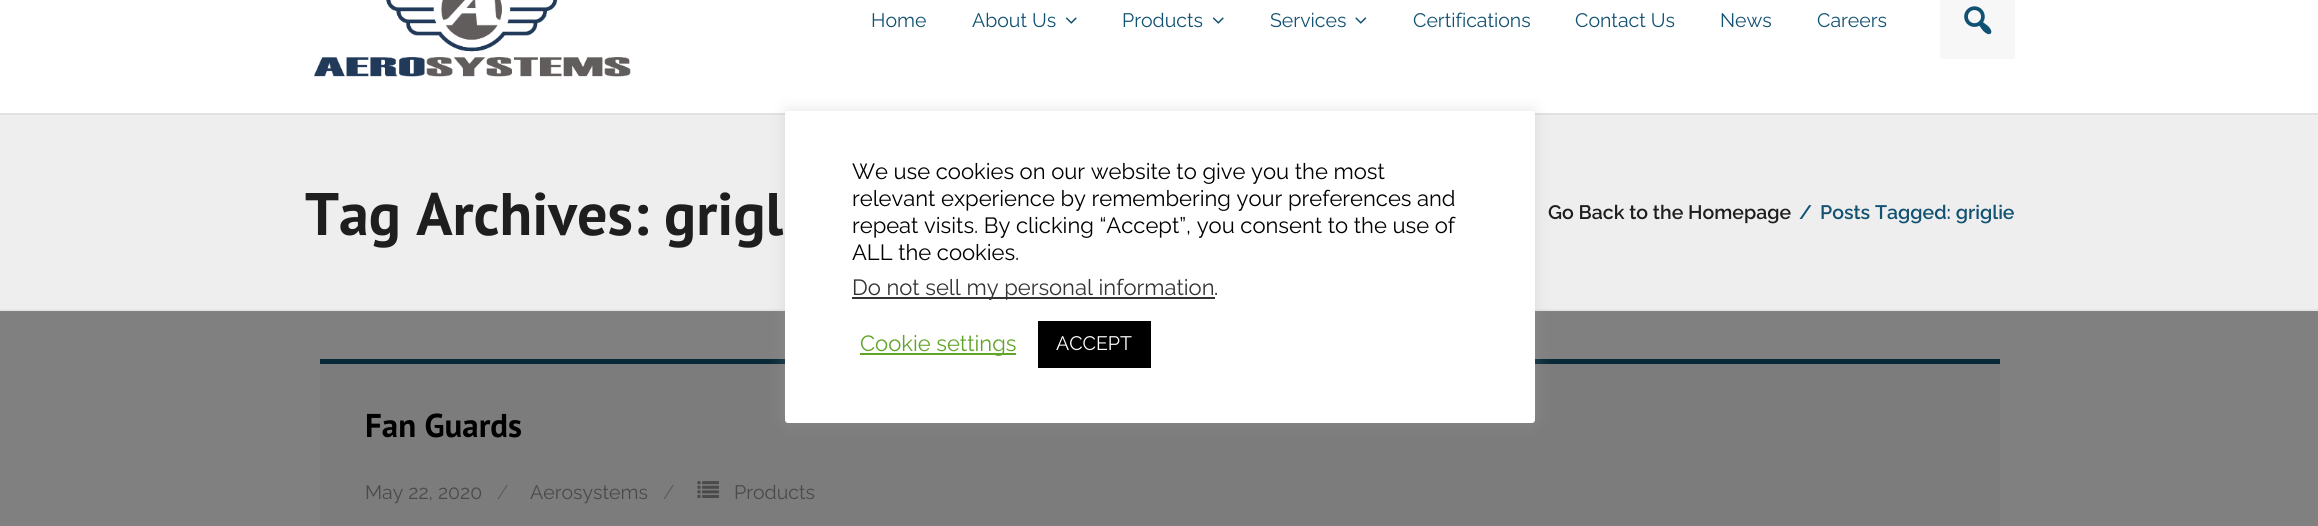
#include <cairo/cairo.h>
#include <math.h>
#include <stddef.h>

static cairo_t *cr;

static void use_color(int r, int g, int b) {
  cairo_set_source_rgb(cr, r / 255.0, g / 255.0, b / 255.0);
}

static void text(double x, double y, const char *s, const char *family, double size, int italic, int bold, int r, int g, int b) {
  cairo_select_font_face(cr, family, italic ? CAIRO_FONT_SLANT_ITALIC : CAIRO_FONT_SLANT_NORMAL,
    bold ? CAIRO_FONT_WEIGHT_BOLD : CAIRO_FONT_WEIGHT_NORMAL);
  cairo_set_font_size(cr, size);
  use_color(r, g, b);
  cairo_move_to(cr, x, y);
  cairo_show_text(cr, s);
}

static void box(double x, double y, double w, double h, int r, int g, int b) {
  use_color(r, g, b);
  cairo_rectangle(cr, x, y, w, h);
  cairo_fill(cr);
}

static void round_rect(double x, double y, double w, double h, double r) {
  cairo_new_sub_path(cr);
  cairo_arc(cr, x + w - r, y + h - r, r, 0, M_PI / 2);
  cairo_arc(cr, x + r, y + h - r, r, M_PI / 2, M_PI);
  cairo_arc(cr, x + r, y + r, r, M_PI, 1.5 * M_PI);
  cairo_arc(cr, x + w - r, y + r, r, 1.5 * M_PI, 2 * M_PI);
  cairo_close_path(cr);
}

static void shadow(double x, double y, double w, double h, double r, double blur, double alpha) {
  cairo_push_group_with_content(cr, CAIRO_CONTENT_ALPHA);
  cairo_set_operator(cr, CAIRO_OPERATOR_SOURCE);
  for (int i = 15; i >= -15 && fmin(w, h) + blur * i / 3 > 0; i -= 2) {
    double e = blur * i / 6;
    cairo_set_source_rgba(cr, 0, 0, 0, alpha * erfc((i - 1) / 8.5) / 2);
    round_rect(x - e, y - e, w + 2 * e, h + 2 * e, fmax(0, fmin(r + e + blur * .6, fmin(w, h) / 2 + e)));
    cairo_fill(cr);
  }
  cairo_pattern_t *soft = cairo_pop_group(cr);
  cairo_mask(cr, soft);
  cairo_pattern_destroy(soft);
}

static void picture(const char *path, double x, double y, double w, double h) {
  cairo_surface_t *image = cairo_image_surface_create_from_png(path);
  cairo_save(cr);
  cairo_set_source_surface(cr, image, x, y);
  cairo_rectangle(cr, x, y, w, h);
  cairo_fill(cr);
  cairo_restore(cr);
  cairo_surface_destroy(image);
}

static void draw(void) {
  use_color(128, 128, 128);
  cairo_paint(cr);
  box(0, 0, 2318, 113, 255, 255, 255);
  box(0, 113, 2318, 2, 225, 225, 225);
  picture("img_01.png", 314, 0, 317, 77);
  picture("img_02.png", 1065, 17, 12, 7);
  picture("img_02.png", 1212, 17, 12, 7);
  picture("img_03.png", 1355, 17, 12, 7);
  box(1940, 0, 75, 59, 247, 247, 247);
  picture("img_04.png", 1964, 6, 28, 29);
  box(0, 115, 2318, 194, 238, 238, 238);
  box(0, 309, 2318, 2, 229, 229, 229);
  box(320, 364, 1680, 162, 124, 124, 124);
  box(320, 359, 1680, 5, 9, 41, 57);
  picture("img_05.png", 697, 481, 22, 17);
  use_color(172, 171, 171);
  shadow(785, 110, 750, 312, 3, 7.5, 0.3);
  use_color(255, 255, 255);
  round_rect(785, 111, 750, 312, 3);
  cairo_fill(cr);
  box(852, 297, 363, 2, 51, 51, 51);
  box(860, 353, 156, 2, 98, 163, 41);
  box(1038, 321, 113, 47, 0, 0, 0);
  text(871, 27, "Home", "Raleway", 19.5, 0, 0, 17, 81, 114);
  text(972, 27, "About Us", "Raleway", 19.5, 0, 0, 17, 81, 114);
  text(1122, 27, "Products", "Raleway", 19.5, 0, 0, 17, 81, 114);
  text(1270, 27, "Services", "Raleway", 19.5, 0, 0, 17, 81, 114);
  text(1413, 27, "Certifications", "Raleway", 19.5, 0, 0, 17, 81, 114);
  text(1575, 27, "Contact Us", "Raleway", 19.5, 0, 0, 17, 81, 114);
  text(1720, 27, "News", "Raleway", 19.5, 0, 0, 17, 81, 114);
  text(1817, 27, "Careers", "Raleway", 19.5, 0, 0, 17, 81, 114);
  text(305, 235, "Tag Archives: grigl", "PT Sans", 60, 0, 1, 30, 30, 30);
  text(1548, 219, "Go Back to the Homepage", "Raleway SemiBold", 19.5, 0, 0, 30, 30, 30);
  text(1799, 219, "/", "Raleway SemiBold", 19.5, 0, 0, 17, 81, 114);
  text(1820, 219, "Posts Tagged: griglie", "Raleway SemiBold", 19.5, 0, 0, 17, 81, 114);
  text(365, 437, "Fan Guards", "PT Sans", 33, 0, 1, 0, 0, 0);
  text(365, 499, "May 22, 2020", "Raleway", 19.5, 0, 0, 74, 74, 74);
  text(497, 499, "/", "Raleway Light", 19.5, 0, 0, 85, 85, 85);
  text(530, 499, "Aerosystems", "Raleway", 19.5, 0, 0, 74, 74, 74);
  text(663, 499, "/", "Raleway Light", 19.5, 0, 0, 85, 85, 85);
  text(734, 499, "Products", "Raleway", 19.5, 0, 0, 74, 74, 74);
  text(852, 179, "We use cookies on our website to give you the most", "Raleway", 22, 0, 0, 0, 0, 0);
  text(852, 206, "relevant experience by remembering your preferences and", "Raleway", 22, 0, 0, 0, 0, 0);
  text(852, 233, "repeat visits. By clicking “Accept”, you consent to the use of", "Raleway", 22, 0, 0, 0, 0, 0);
  text(852, 260, "ALL the cookies.", "Raleway", 22, 0, 0, 0, 0, 0);
  text(852, 295, "Do not sell my personal information", "Raleway", 22, 0, 0, 51, 51, 51);
  text(1214, 295, ".", "Raleway", 22, 0, 0, 0, 0, 0);
  text(860, 351, "Cookie settings", "Raleway", 22, 0, 0, 98, 163, 41);
  text(1056, 350, "ACCEPT", "Raleway", 19.5, 0, 0, 255, 255, 255);
}

int main(void) {
  cairo_surface_t *surface = cairo_image_surface_create(CAIRO_FORMAT_RGB24, 2318, 526);
  cr = cairo_create(surface);
  cairo_font_options_t *options = cairo_font_options_create();
  cairo_font_options_set_hint_metrics(options, CAIRO_HINT_METRICS_OFF);
  cairo_font_options_set_hint_style(options, CAIRO_HINT_STYLE_NONE);
  cairo_set_font_options(cr, options);
  cairo_set_miter_limit(cr, 4);
  draw();
  cairo_surface_write_to_png(surface, "out.png");
  cairo_font_options_destroy(options);
  cairo_destroy(cr);
  cairo_surface_destroy(surface);
  return 0;
}
